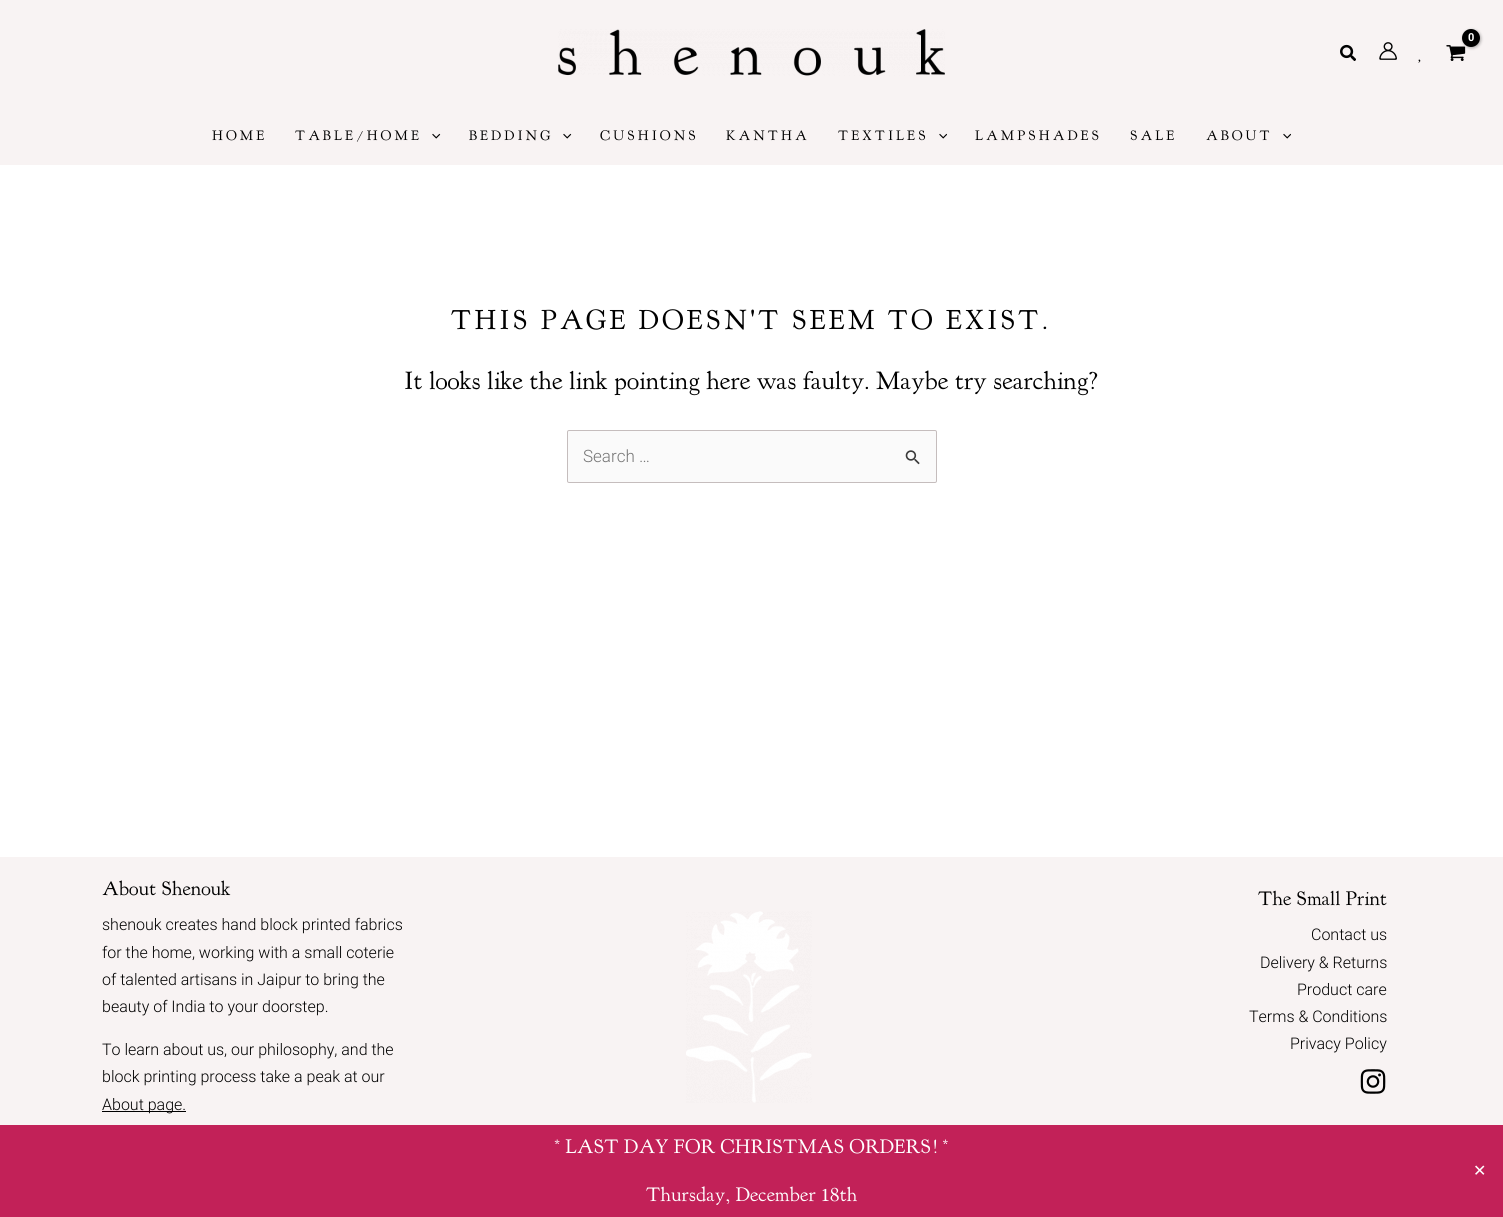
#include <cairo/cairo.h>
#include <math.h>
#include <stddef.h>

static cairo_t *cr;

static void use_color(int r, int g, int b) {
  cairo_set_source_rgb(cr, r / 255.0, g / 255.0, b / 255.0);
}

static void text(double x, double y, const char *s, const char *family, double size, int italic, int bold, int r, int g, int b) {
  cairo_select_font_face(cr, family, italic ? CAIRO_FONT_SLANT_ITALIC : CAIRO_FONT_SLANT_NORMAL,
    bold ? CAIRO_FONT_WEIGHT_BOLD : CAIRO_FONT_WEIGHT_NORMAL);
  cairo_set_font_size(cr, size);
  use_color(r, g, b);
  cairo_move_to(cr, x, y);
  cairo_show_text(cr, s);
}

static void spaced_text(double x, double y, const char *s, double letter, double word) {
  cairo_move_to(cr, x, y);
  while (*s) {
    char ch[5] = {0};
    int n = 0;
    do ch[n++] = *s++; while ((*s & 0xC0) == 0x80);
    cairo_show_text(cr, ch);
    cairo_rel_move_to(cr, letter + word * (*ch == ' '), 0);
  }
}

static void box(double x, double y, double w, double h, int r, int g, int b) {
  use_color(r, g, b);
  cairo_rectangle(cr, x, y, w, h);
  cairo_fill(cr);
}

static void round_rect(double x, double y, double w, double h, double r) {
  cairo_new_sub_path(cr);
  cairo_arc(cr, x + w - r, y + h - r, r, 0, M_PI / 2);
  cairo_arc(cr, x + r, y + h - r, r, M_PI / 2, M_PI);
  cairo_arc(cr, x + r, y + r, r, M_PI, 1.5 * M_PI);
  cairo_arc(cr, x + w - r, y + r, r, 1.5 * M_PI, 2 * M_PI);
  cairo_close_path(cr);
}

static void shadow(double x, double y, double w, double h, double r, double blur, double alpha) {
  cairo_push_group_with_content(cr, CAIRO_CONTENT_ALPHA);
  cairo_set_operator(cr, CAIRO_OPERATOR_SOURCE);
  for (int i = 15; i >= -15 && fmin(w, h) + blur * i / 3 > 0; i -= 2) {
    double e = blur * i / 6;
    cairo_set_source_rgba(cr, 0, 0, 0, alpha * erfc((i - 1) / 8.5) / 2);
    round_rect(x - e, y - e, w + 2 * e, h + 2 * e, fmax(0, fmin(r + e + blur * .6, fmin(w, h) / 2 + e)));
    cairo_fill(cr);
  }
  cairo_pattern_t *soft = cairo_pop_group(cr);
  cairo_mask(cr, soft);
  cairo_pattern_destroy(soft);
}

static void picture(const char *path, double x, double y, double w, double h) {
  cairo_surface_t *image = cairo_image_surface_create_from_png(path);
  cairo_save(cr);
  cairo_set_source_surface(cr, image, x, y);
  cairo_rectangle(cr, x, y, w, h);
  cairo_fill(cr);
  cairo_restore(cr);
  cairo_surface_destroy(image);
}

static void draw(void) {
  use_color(255, 255, 255);
  cairo_paint(cr);
  box(0, 0, 1503, 165, 248, 243, 243);
  picture("img_01.png", 558, 29, 387, 47);
  picture("img_02.png", 1446, 45, 20, 16);
  use_color(0, 0, 0);
  shadow(1463, 30, 18, 18, 9, 1.5, 0.3);
  use_color(0, 0, 0);
  cairo_arc(cr, 1471, 38, 9, 0, 2 * M_PI);
  cairo_fill(cr);
  picture("img_03.png", 1340, 44, 16, 17);
  picture("img_04.png", 1379, 42, 18, 18);
  picture("img_05.png", 1418, 59, 3, 4);
  picture("img_06.png", 432, 133, 9, 6);
  picture("img_06.png", 563, 133, 9, 6);
  picture("img_07.png", 939, 133, 8, 6);
  picture("img_07.png", 1283, 133, 8, 6);
  use_color(250, 250, 250);
  round_rect(567.5, 430.5, 369, 52, 1.5);
  cairo_fill_preserve(cr);
  use_color(197, 189, 189);
  cairo_set_line_width(cr, 1);
  cairo_stroke(cr);
  picture("img_08.png", 905, 450, 15, 15);
  box(0, 857, 1503, 268, 248, 243, 243);
  box(102, 1111, 84, 1, 0, 0, 0);
  picture("img_09.png", 686, 911, 126, 192);
  picture("img_10.png", 1360, 1069, 26, 25);
  box(0, 1125, 1503, 92, 194, 33, 88);
  text(1468, 41, "0", "Roboto", 11, 0, 1, 255, 255, 255);
  cairo_select_font_face(cr, "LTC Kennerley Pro", CAIRO_FONT_SLANT_NORMAL, CAIRO_FONT_WEIGHT_NORMAL);
  cairo_set_font_size(cr, 14);
  use_color(0, 0, 0);
  spaced_text(212, 140, "HOME", 3, 0);
  spaced_text(295, 140, "TABLE/HOME", 3, 0);
  spaced_text(469, 140, "BEDDING", 3, 0);
  spaced_text(600, 140, "CUSHIONS", 3, 0);
  spaced_text(726, 140, "KANTHA", 3, 0);
  spaced_text(838, 140, "TEXTILES", 3, 0);
  spaced_text(975, 140, "LAMPSHADES", 3, 0);
  spaced_text(1130, 140, "SALE", 3, 0);
  spaced_text(1206, 140, "ABOUT", 3, 0);
  cairo_set_font_size(cr, 28);
  spaced_text(451, 329, "THIS PAGE DOESN'T SEEM TO EXIST.", 3, 0);
  text(404, 389, "It looks like the link pointing here was faulty. Maybe try searching?", "LTC Kennerley Pro", 25.5, 0, 0, 0, 0, 0);
  text(583, 462, "Search …", "Roboto Light", 17, 0, 0, 117, 117, 117);
  text(102, 895, "About Shenouk", "LTC Kennerley Pro", 20, 0, 0, 0, 0, 0);
  text(102, 930, "shenouk creates hand block printed fabrics", "Roboto Light", 16, 0, 0, 0, 0, 0);
  text(102, 958, "for the home, working with a small coterie", "Roboto Light", 16, 0, 0, 0, 0, 0);
  text(102, 985, "of talented artisans in Jaipur to bring the", "Roboto Light", 16, 0, 0, 0, 0, 0);
  text(102, 1012, "beauty of India to your doorstep.", "Roboto Light", 16, 0, 0, 0, 0, 0);
  text(102, 1055, "To learn about us, our philosophy, and the", "Roboto Light", 16, 0, 0, 0, 0, 0);
  text(102, 1082, "block printing process take a peak at our", "Roboto Light", 16, 0, 0, 0, 0, 0);
  text(102, 1110, "About page.", "Roboto Light", 16, 0, 0, 0, 0, 0);
  text(1258, 905, "The Small Print", "LTC Kennerley Pro", 20, 0, 0, 0, 0, 0);
  text(1311, 940, "Contact us", "Roboto Light", 16, 0, 0, 0, 0, 0);
  text(1260, 968, "Delivery & Returns", "Roboto Light", 16, 0, 0, 0, 0, 0);
  text(1297, 995, "Product care", "Roboto Light", 16, 0, 0, 0, 0, 0);
  text(1249, 1022, "Terms & Conditions", "Roboto Light", 16, 0, 0, 0, 0, 0);
  text(1290, 1049, "Privacy Policy", "Roboto Light", 16, 0, 0, 0, 0, 0);
  text(554, 1153, "* LAST DAY FOR CHRISTMAS ORDERS! *", "LTC Kennerley Pro", 20, 0, 0, 255, 255, 255);
  text(646, 1201, "Thursday, December 18th", "LTC Kennerley Pro", 20, 0, 0, 255, 255, 255);
  cairo_select_font_face(cr, "DejaVu Sans", CAIRO_FONT_SLANT_NORMAL, CAIRO_FONT_WEIGHT_NORMAL);
  cairo_set_font_size(cr, 16);
  spaced_text(1473, 1176, "✕", 2, 0);
}

int main(void) {
  cairo_surface_t *surface = cairo_image_surface_create(CAIRO_FORMAT_RGB24, 1503, 1217);
  cr = cairo_create(surface);
  cairo_font_options_t *options = cairo_font_options_create();
  cairo_font_options_set_hint_metrics(options, CAIRO_HINT_METRICS_OFF);
  cairo_font_options_set_hint_style(options, CAIRO_HINT_STYLE_NONE);
  cairo_set_font_options(cr, options);
  cairo_set_miter_limit(cr, 4);
  draw();
  cairo_surface_write_to_png(surface, "out.png");
  cairo_font_options_destroy(options);
  cairo_destroy(cr);
  cairo_surface_destroy(surface);
  return 0;
}
